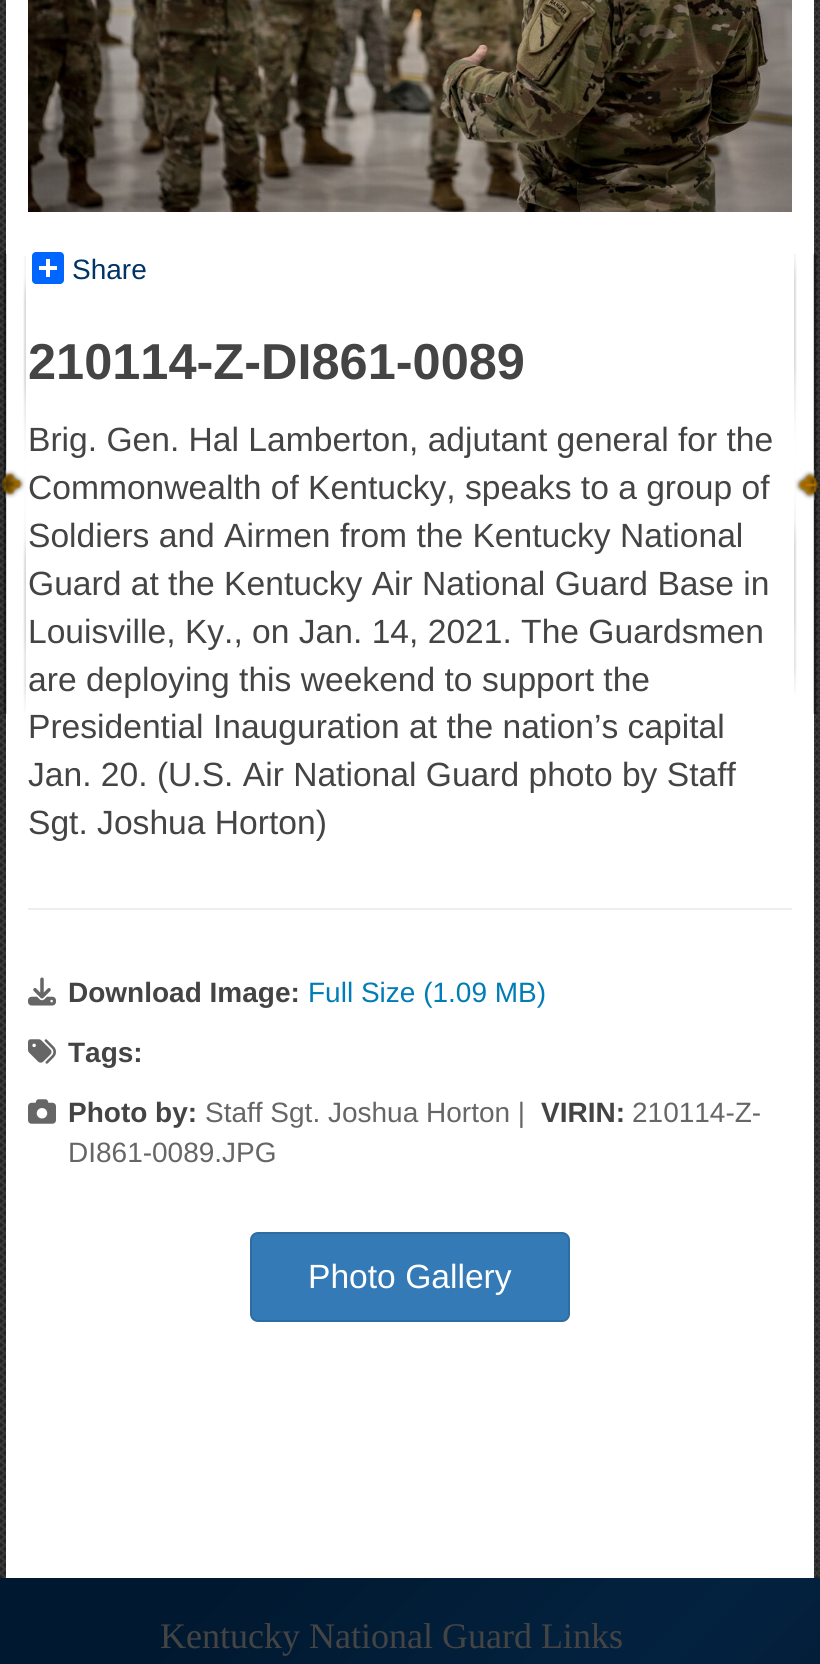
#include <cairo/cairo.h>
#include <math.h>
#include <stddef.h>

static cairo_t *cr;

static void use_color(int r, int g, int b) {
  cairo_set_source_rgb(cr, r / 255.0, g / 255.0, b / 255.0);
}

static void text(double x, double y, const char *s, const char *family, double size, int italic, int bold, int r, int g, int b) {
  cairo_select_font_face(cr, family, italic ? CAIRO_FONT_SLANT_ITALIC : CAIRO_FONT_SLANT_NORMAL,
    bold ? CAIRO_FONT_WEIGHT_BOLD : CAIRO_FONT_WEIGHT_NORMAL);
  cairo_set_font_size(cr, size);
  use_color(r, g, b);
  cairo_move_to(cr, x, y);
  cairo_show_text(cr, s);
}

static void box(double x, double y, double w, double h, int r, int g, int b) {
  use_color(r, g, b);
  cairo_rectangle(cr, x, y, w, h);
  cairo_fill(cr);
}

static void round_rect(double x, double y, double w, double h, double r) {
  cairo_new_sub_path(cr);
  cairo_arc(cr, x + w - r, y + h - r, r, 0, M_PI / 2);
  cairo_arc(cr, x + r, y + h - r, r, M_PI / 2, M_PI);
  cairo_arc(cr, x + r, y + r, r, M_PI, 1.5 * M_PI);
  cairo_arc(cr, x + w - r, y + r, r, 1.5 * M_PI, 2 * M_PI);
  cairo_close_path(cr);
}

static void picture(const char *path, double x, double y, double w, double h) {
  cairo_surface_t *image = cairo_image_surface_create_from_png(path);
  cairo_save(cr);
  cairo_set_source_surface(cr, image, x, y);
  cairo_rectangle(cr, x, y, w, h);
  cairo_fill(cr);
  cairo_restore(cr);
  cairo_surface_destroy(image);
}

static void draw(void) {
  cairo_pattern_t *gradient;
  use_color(255, 255, 255);
  cairo_paint(cr);
  picture("img_01.png", 0, 0, 820, 1578);
  box(6, 0, 808, 1578, 255, 255, 255);
  picture("img_02.png", 0, 254, 820, 460);
  picture("img_03.png", 28, 0, 764, 212);
  use_color(1, 102, 255);
  round_rect(32, 252, 32, 32, 4);
  cairo_fill(cr);
  box(46, 259, 4, 18, 255, 255, 255);
  box(39, 266, 18, 4, 255, 255, 255);
  box(28, 908, 764, 2, 238, 238, 238);
  picture("img_04.png", 28, 977, 28, 29);
  picture("img_05.png", 28, 1039, 28, 25);
  picture("img_06.png", 28, 1099, 28, 25);
  use_color(51, 122, 183);
  round_rect(251, 1233, 318, 88, 7);
  cairo_fill_preserve(cr);
  use_color(46, 109, 164);
  cairo_stroke(cr);
  gradient = cairo_pattern_create_linear(-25, 1603, 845, 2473);
  cairo_pattern_add_color_stop_rgba(gradient, 0, 0.004, 0.098, 0.188, 1);
  cairo_pattern_add_color_stop_rgba(gradient, 0.13, 0.004, 0.098, 0.188, 1);
  cairo_pattern_add_color_stop_rgba(gradient, 0.43, 0.012, 0.133, 0.251, 1);
  cairo_pattern_add_color_stop_rgba(gradient, 0.79, 0.004, 0.067, 0.133, 1);
  cairo_pattern_add_color_stop_rgba(gradient, 1, 0, 0.043, 0.086, 1);
  cairo_set_source(cr, gradient);
  cairo_pattern_destroy(gradient);
  cairo_rectangle(cr, 0, 1578, 820, 86);
  cairo_fill(cr);
  text(72, 279, "Share", "Liberation Sans", 28, 0, 0, 0, 51, 102);
  text(28, 379, "210114-Z-DI861-0089", "Liberation Sans", 50.5, 0, 1, 68, 68, 68);
  text(28, 451, "Brig. Gen. Hal Lamberton, adjutant general for the", "Liberation Sans", 33.6, 0, 0, 68, 68, 68);
  text(28, 499, "Commonwealth of Kentucky, speaks to a group of", "Liberation Sans", 33.6, 0, 0, 68, 68, 68);
  text(28, 547, "Soldiers and Airmen from the Kentucky National", "Liberation Sans", 33.6, 0, 0, 68, 68, 68);
  text(28, 595, "Guard at the Kentucky Air National Guard Base in", "Liberation Sans", 33.6, 0, 0, 68, 68, 68);
  text(28, 643, "Louisville, Ky., on Jan. 14, 2021. The Guardsmen", "Liberation Sans", 33.6, 0, 0, 68, 68, 68);
  text(28, 691, "are deploying this weekend to support the", "Liberation Sans", 33.6, 0, 0, 68, 68, 68);
  text(28, 738, "Presidential Inauguration at the nation’s capital", "Liberation Sans", 33.6, 0, 0, 68, 68, 68);
  text(28, 786, "Jan. 20. (U.S. Air National Guard photo by Staff", "Liberation Sans", 33.6, 0, 0, 68, 68, 68);
  text(28, 834, "Sgt. Joshua Horton)", "Liberation Sans", 33.6, 0, 0, 68, 68, 68);
  text(68, 1002, "Download Image:", "Liberation Sans", 28, 0, 1, 68, 68, 68);
  text(308, 1002, "Full Size (1.09 MB)", "Liberation Sans", 28, 0, 0, 0, 125, 183);
  text(68, 1062, "Tags:", "Liberation Sans", 28, 0, 1, 68, 68, 68);
  text(68, 1122, "Photo by:", "Liberation Sans", 28, 0, 1, 68, 68, 68);
  text(205, 1122, "Staff Sgt. Joshua Horton |", "Liberation Sans", 28, 0, 0, 102, 102, 102);
  text(541, 1122, "VIRIN:", "Liberation Sans", 28, 0, 1, 68, 68, 68);
  text(632, 1122, "210114-Z-", "Liberation Sans", 28, 0, 0, 102, 102, 102);
  text(68, 1162, "DI861-0089.JPG", "Liberation Sans", 28, 0, 0, 102, 102, 102);
  text(308, 1288, "Photo Gallery", "Liberation Sans", 33.6, 0, 0, 255, 255, 255);
  text(160, 1648, "Kentucky National Guard Links", "Liberation Serif", 36, 0, 0, 68, 68, 68);
}

int main(void) {
  cairo_surface_t *surface = cairo_image_surface_create(CAIRO_FORMAT_RGB24, 820, 1664);
  cr = cairo_create(surface);
  cairo_font_options_t *options = cairo_font_options_create();
  cairo_font_options_set_hint_metrics(options, CAIRO_HINT_METRICS_OFF);
  cairo_font_options_set_hint_style(options, CAIRO_HINT_STYLE_NONE);
  cairo_set_font_options(cr, options);
  cairo_set_miter_limit(cr, 4);
  draw();
  cairo_surface_write_to_png(surface, "out.png");
  cairo_font_options_destroy(options);
  cairo_destroy(cr);
  cairo_surface_destroy(surface);
  return 0;
}
